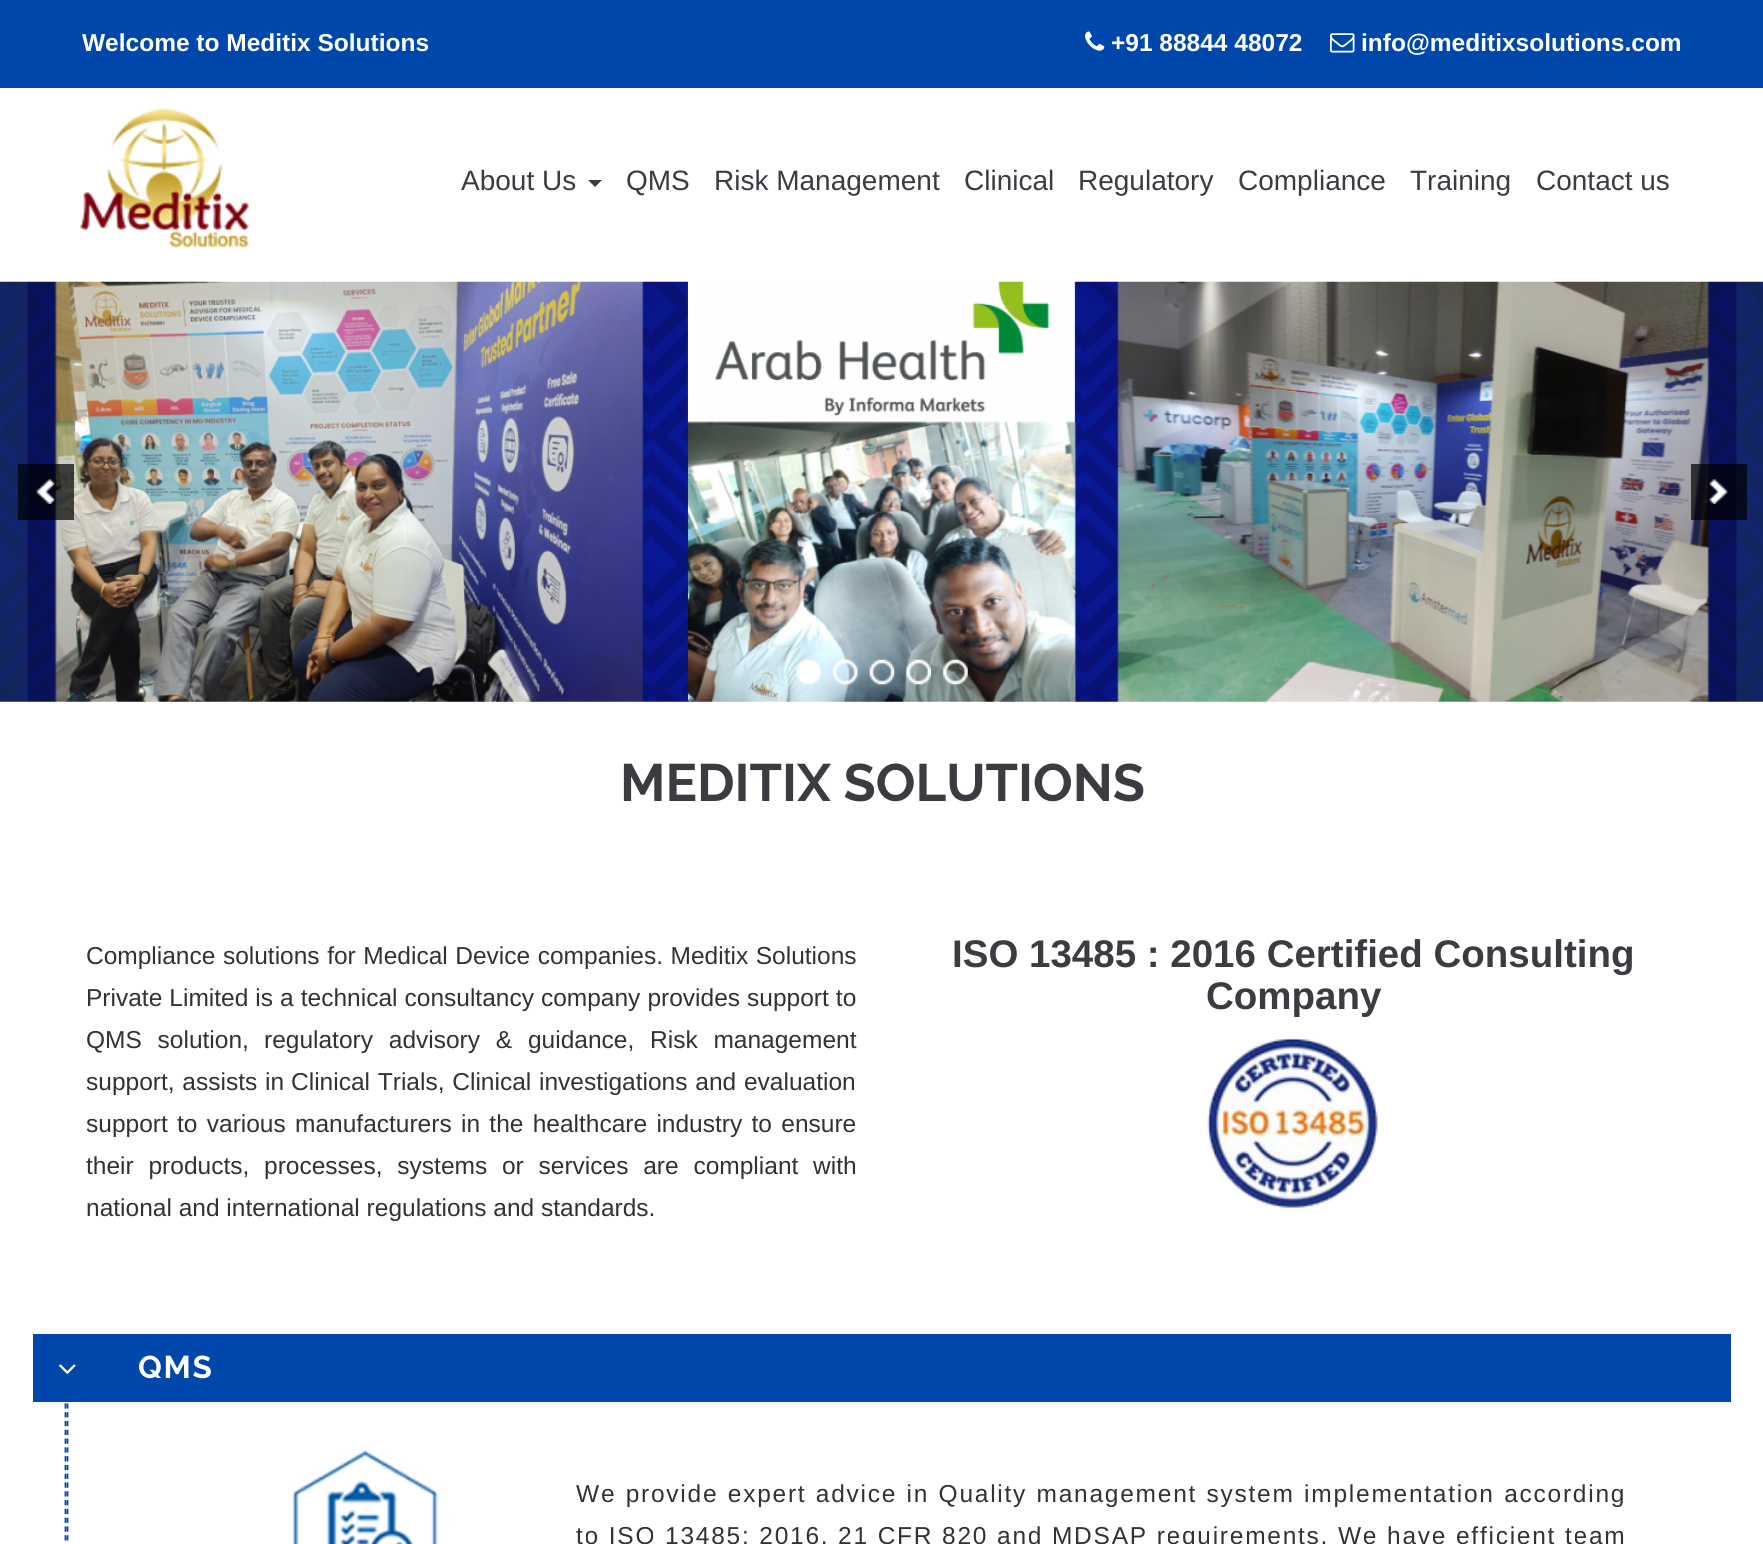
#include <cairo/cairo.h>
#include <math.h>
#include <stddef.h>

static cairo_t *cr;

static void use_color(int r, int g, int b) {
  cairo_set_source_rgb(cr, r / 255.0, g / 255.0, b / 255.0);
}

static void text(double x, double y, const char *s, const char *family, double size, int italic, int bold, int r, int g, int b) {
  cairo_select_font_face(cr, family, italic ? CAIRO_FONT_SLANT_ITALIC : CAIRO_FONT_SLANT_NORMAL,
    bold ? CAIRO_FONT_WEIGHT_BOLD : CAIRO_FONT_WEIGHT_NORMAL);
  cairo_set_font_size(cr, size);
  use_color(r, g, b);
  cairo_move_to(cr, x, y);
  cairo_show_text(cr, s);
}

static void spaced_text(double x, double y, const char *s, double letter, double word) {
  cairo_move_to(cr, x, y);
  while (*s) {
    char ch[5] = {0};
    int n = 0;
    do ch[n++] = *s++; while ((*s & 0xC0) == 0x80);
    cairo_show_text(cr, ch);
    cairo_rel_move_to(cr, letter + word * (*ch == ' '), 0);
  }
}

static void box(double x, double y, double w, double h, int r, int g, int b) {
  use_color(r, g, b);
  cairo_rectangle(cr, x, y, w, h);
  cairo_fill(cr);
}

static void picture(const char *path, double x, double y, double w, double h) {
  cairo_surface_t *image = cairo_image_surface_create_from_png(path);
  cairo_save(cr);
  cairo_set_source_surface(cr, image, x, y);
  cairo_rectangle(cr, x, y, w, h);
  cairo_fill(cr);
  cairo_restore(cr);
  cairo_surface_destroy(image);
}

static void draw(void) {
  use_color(255, 255, 255);
  cairo_paint(cr);
  box(0, 0, 1763, 88, 0, 71, 171);
  picture("img_01.png", 1085, 31, 20, 20);
  picture("img_02.png", 1330, 33, 25, 20);
  picture("img_03.png", 80, 108, 169, 140);
  use_color(58, 60, 65);
  cairo_new_path(cr);
  cairo_move_to(cr, 588, 180);
  cairo_line_to(cr, 602, 180);
  cairo_line_to(cr, 595, 187);
  cairo_close_path(cr);
  cairo_fill(cr);
  picture("img_04.png", 0, 281, 1763, 421);
  cairo_set_source_rgba(cr, 0, 0, 0, 0.7);
  cairo_rectangle(cr, 18, 464, 56, 56);
  cairo_fill(cr);
  picture("img_05.png", 36, 479, 19, 25);
  cairo_rectangle(cr, 1691, 464, 56, 56);
  cairo_fill(cr);
  picture("img_06.png", 1709, 479, 19, 25);
  picture("img_07.png", 796, 659, 25, 26);
  picture("img_08.png", 833, 659, 25, 26);
  picture("img_09.png", 869, 659, 26, 26);
  picture("img_10.png", 906, 659, 25, 26);
  picture("img_11.png", 943, 659, 25, 26);
  picture("img_12.png", 1207, 1037, 171, 171);
  cairo_new_path(cr);
  cairo_move_to(cr, 67.5, 1377);
  cairo_line_to(cr, 67.5, 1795.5);
  use_color(0, 71, 171);
  cairo_set_line_width(cr, 1.8);
  cairo_set_dash(cr, (double[]){5.25, 3.54}, 2, 0);
  cairo_stroke(cr);
  cairo_new_path(cr);
  cairo_move_to(cr, 65.5, 1377);
  cairo_line_to(cr, 65.5, 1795.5);
  cairo_stroke(cr);
  box(33, 1334, 1698, 68, 0, 71, 171);
  picture("img_13.png", 59, 1364, 17, 10);
  picture("img_14.png", 293, 1450, 159, 94);
  text(82, 51, "Welcome to Meditix Solutions", "Liberation Sans", 24.5, 0, 1, 255, 255, 255);
  text(1111, 51, "+91 88844 48072", "Liberation Sans", 24.5, 0, 1, 255, 255, 255);
  text(1361, 51, "info@meditixsolutions.com", "Liberation Sans", 24.5, 0, 1, 255, 255, 255);
  text(461, 190, "About Us", "Liberation Sans", 28, 0, 0, 58, 60, 65);
  text(626, 190, "QMS", "Liberation Sans", 28, 0, 0, 58, 60, 65);
  text(714, 190, "Risk Management", "Liberation Sans", 28, 0, 0, 58, 60, 65);
  text(964, 190, "Clinical", "Liberation Sans", 28, 0, 0, 58, 60, 65);
  text(1078, 190, "Regulatory", "Liberation Sans", 28, 0, 0, 58, 60, 65);
  text(1238, 190, "Compliance", "Liberation Sans", 28, 0, 0, 58, 60, 65);
  text(1410, 190, "Training", "Liberation Sans", 28, 0, 0, 58, 60, 65);
  text(1536, 190, "Contact us", "Liberation Sans", 28, 0, 0, 58, 60, 65);
  text(620, 801, "MEDITIX SOLUTIONS", "Raleway", 52.5, 0, 1, 58, 60, 65);
  cairo_select_font_face(cr, "Liberation Sans", CAIRO_FONT_SLANT_NORMAL, CAIRO_FONT_WEIGHT_NORMAL);
  cairo_set_font_size(cr, 24.5);
  use_color(49, 50, 51);
  spaced_text(86, 964, "Compliance solutions for Medical Device companies. Meditix Solutions", 0, 0.75);
  spaced_text(86, 1006, "Private Limited is a technical consultancy company provides support to", 0, 0.25);
  spaced_text(86, 1048, "QMS solution,", 0, 9);
  spaced_text(264, 1048, "regulatory advisory & guidance, Risk management", 0, 9);
  spaced_text(86, 1090, "support, assists in", 0, 1);
  spaced_text(291, 1090, "Clinical Trials, Clinical investigations and evaluation", 0, 1);
  spaced_text(86, 1132, "support to various manufacturers in the healthcare industry to ensure", 0, 2.5);
  spaced_text(86, 1174, "their products, processes, systems or services are compliant with", 0, 8);
  text(86, 1216, "national and international regulations and standards.", "Liberation Sans", 24.5, 0, 0, 49, 50, 51);
  text(952, 967, "ISO 13485 : 2016 Certified Consulting", "Liberation Sans", 38.5, 0, 1, 58, 60, 65);
  text(1206, 1009, "Company", "Liberation Sans", 38.5, 0, 1, 58, 60, 65);
  cairo_select_font_face(cr, "Raleway", CAIRO_FONT_SLANT_NORMAL, CAIRO_FONT_WEIGHT_BOLD);
  cairo_set_font_size(cr, 31.5);
  use_color(255, 255, 255);
  spaced_text(138, 1378, "QMS", 1.75, 0);
  cairo_select_font_face(cr, "Liberation Sans", CAIRO_FONT_SLANT_NORMAL, CAIRO_FONT_WEIGHT_NORMAL);
  cairo_set_font_size(cr, 24.5);
  use_color(49, 50, 51);
  spaced_text(576, 1502, "We provide expert advice in Quality management system implementation according", 1.75, 0.9);
  spaced_text(576, 1544, "to ISO 13485: 2016, 21 CFR 820 and MDSAP requirements. We have efficient team", 1.75, 0.25);
}

int main(void) {
  cairo_surface_t *surface = cairo_image_surface_create(CAIRO_FORMAT_RGB24, 1763, 1544);
  cr = cairo_create(surface);
  cairo_font_options_t *options = cairo_font_options_create();
  cairo_font_options_set_hint_metrics(options, CAIRO_HINT_METRICS_OFF);
  cairo_font_options_set_hint_style(options, CAIRO_HINT_STYLE_NONE);
  cairo_set_font_options(cr, options);
  cairo_set_miter_limit(cr, 4);
  draw();
  cairo_surface_write_to_png(surface, "out.png");
  cairo_font_options_destroy(options);
  cairo_destroy(cr);
  cairo_surface_destroy(surface);
  return 0;
}
